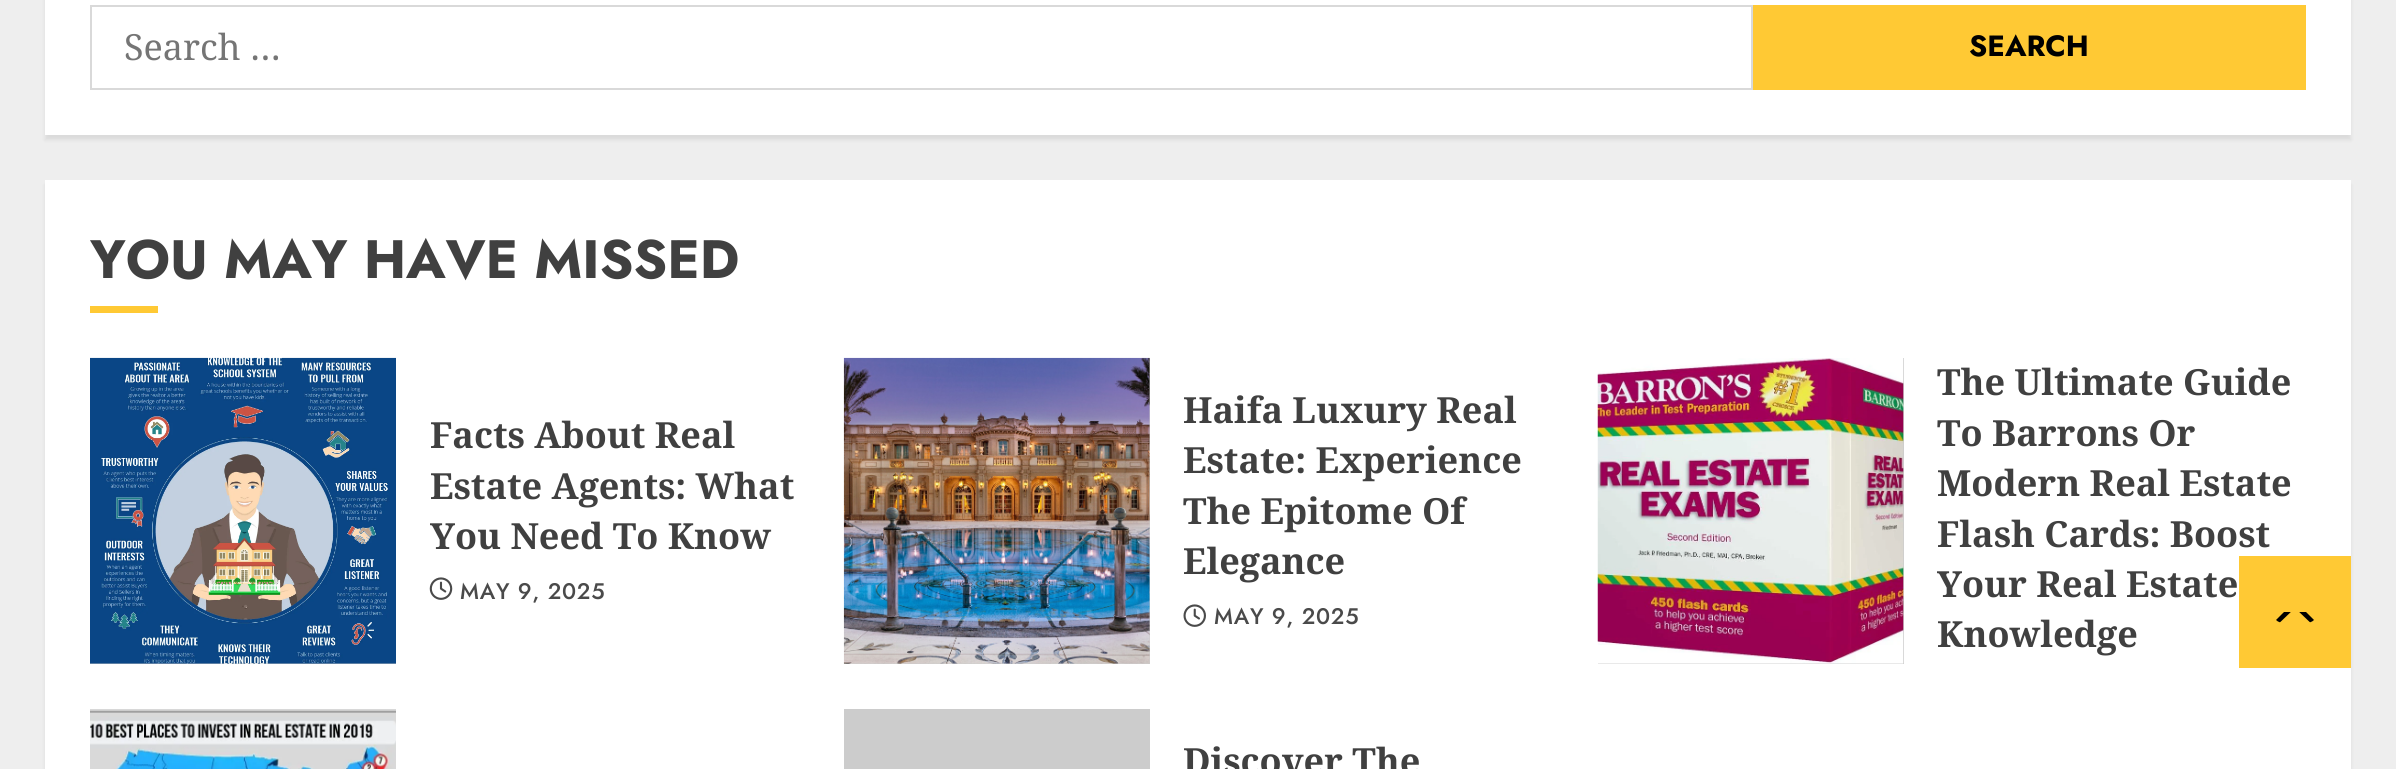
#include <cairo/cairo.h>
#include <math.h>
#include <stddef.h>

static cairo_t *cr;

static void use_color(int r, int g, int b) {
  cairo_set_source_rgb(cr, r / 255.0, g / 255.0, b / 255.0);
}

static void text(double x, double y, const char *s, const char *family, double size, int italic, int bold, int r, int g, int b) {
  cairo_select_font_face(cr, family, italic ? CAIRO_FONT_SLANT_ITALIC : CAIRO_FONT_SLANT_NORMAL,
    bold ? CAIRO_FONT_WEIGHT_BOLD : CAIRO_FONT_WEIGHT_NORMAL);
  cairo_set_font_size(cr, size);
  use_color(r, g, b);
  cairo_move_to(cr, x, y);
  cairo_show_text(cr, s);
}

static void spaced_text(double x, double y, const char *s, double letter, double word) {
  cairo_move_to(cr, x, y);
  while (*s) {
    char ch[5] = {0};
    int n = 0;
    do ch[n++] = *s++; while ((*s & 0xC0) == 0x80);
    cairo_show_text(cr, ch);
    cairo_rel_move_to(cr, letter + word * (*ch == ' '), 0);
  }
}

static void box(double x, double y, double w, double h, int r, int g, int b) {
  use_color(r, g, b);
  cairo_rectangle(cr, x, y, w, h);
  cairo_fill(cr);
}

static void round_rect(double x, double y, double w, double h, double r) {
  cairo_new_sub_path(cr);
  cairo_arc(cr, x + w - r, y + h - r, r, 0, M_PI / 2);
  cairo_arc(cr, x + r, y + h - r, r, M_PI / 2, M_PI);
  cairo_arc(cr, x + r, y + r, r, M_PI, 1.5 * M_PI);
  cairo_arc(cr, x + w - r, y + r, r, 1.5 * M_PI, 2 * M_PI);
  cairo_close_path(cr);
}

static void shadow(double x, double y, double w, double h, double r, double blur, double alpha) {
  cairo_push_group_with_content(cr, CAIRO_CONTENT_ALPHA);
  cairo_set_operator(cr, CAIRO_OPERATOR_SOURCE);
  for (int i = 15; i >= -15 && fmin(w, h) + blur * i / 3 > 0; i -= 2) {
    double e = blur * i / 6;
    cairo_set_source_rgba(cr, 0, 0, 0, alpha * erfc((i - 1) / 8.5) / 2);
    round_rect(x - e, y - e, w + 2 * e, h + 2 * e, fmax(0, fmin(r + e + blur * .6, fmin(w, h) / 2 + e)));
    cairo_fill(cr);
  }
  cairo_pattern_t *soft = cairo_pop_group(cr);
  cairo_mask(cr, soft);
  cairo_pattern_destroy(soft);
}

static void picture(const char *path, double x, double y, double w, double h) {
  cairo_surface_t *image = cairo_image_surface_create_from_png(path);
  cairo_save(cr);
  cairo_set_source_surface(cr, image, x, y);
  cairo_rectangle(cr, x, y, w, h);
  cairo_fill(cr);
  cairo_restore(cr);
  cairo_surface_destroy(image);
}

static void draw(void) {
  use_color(238, 238, 238);
  cairo_paint(cr);
  use_color(0, 0, 0);
  shadow(45, -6, 2306, 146, 0, 2, 0.08);
  box(45, 0, 2306, 135, 255, 255, 255);
  cairo_rectangle(cr, 91, 6, 1661, 83);
  use_color(217, 217, 217);
  cairo_stroke(cr);
  box(1753, 5, 553, 85, 255, 201, 52);
  use_color(0, 0, 0);
  shadow(45, 185, 2306, 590, 0, 2, 0.08);
  box(45, 180, 2306, 589, 255, 255, 255);
  box(90, 306, 68, 7, 255, 201, 52);
  box(90, 663, 306, 1, 204, 204, 204);
  picture("img_01.png", 90, 357, 306, 307);
  picture("img_02.png", 429, 577, 24, 23);
  box(844, 358, 306, 306, 204, 204, 204);
  picture("img_03.png", 843, 357, 307, 307);
  picture("img_04.png", 1183, 604, 23, 23);
  box(1598, 358, 306, 306, 204, 204, 204);
  picture("img_05.png", 1597, 358, 307, 306);
  picture("img_06.png", 90, 709, 306, 60);
  box(844, 709, 306, 60, 204, 204, 204);
  box(2239, 556, 112, 112, 255, 201, 52);
  use_color(0, 0, 0);
  cairo_new_path(cr);
  cairo_move_to(cr, 2314, 620);
  cairo_curve_to(cr, 2312, 622, 2309, 623, 2306, 623);
  cairo_line_to(cr, 2284, 623);
  cairo_curve_to(cr, 2281, 623, 2278, 622, 2276, 620);
  cairo_line_to(cr, 2284, 612);
  cairo_line_to(cr, 2306, 612);
  cairo_close_path(cr);
  cairo_fill(cr);
  use_color(255, 201, 52);
  cairo_new_path(cr);
  cairo_move_to(cr, 2318, 630);
  cairo_line_to(cr, 2272, 630);
  cairo_line_to(cr, 2295, 608);
  cairo_close_path(cr);
  cairo_fill(cr);
  text(124, 60, "Search …", "Noto Serif", 36, 0, 0, 117, 117, 117);
  text(1969, 56, "SEARCH", "Jost", 29.25, 0, 1, 0, 0, 0);
  text(90, 278, "YOU MAY HAVE MISSED", "Jost", 54, 0, 1, 64, 64, 64);
  text(430, 448, "Facts About Real", "Noto Serif", 36, 0, 1, 64, 64, 64);
  text(430, 499, "Estate Agents: What", "Noto Serif", 36, 0, 1, 64, 64, 64);
  text(430, 549, "You Need To Know", "Noto Serif", 36, 0, 1, 64, 64, 64);
  cairo_select_font_face(cr, "Jost Medium", CAIRO_FONT_SLANT_NORMAL, CAIRO_FONT_WEIGHT_NORMAL);
  cairo_set_font_size(cr, 22.5);
  use_color(74, 74, 74);
  spaced_text(460, 599, "MAY 9, 2025", 0.75, 0);
  text(1183, 423, "Haifa Luxury Real", "Noto Serif", 36, 0, 1, 64, 64, 64);
  text(1183, 473, "Estate: Experience", "Noto Serif", 36, 0, 1, 64, 64, 64);
  text(1183, 524, "The Epitome Of", "Noto Serif", 36, 0, 1, 64, 64, 64);
  text(1183, 574, "Elegance", "Noto Serif", 36, 0, 1, 64, 64, 64);
  cairo_select_font_face(cr, "Jost Medium", CAIRO_FONT_SLANT_NORMAL, CAIRO_FONT_WEIGHT_NORMAL);
  cairo_set_font_size(cr, 22.5);
  use_color(74, 74, 74);
  spaced_text(1214, 624, "MAY 9, 2025", 0.75, 0);
  text(1937, 395, "The Ultimate Guide", "Noto Serif", 36, 0, 1, 64, 64, 64);
  text(1937, 446, "To Barrons Or", "Noto Serif", 36, 0, 1, 64, 64, 64);
  text(1937, 496, "Modern Real Estate", "Noto Serif", 36, 0, 1, 64, 64, 64);
  text(1937, 547, "Flash Cards: Boost", "Noto Serif", 36, 0, 1, 64, 64, 64);
  text(1937, 597, "Your Real Estate", "Noto Serif", 36, 0, 1, 64, 64, 64);
  text(1937, 647, "Knowledge", "Noto Serif", 36, 0, 1, 64, 64, 64);
  text(1183, 774, "Discover The", "Noto Serif", 36, 0, 1, 64, 64, 64);
}

int main(void) {
  cairo_surface_t *surface = cairo_image_surface_create(CAIRO_FORMAT_RGB24, 2396, 769);
  cr = cairo_create(surface);
  cairo_font_options_t *options = cairo_font_options_create();
  cairo_font_options_set_hint_metrics(options, CAIRO_HINT_METRICS_OFF);
  cairo_font_options_set_hint_style(options, CAIRO_HINT_STYLE_NONE);
  cairo_set_font_options(cr, options);
  cairo_set_miter_limit(cr, 4);
  draw();
  cairo_surface_write_to_png(surface, "out.png");
  cairo_font_options_destroy(options);
  cairo_destroy(cr);
  cairo_surface_destroy(surface);
  return 0;
}
